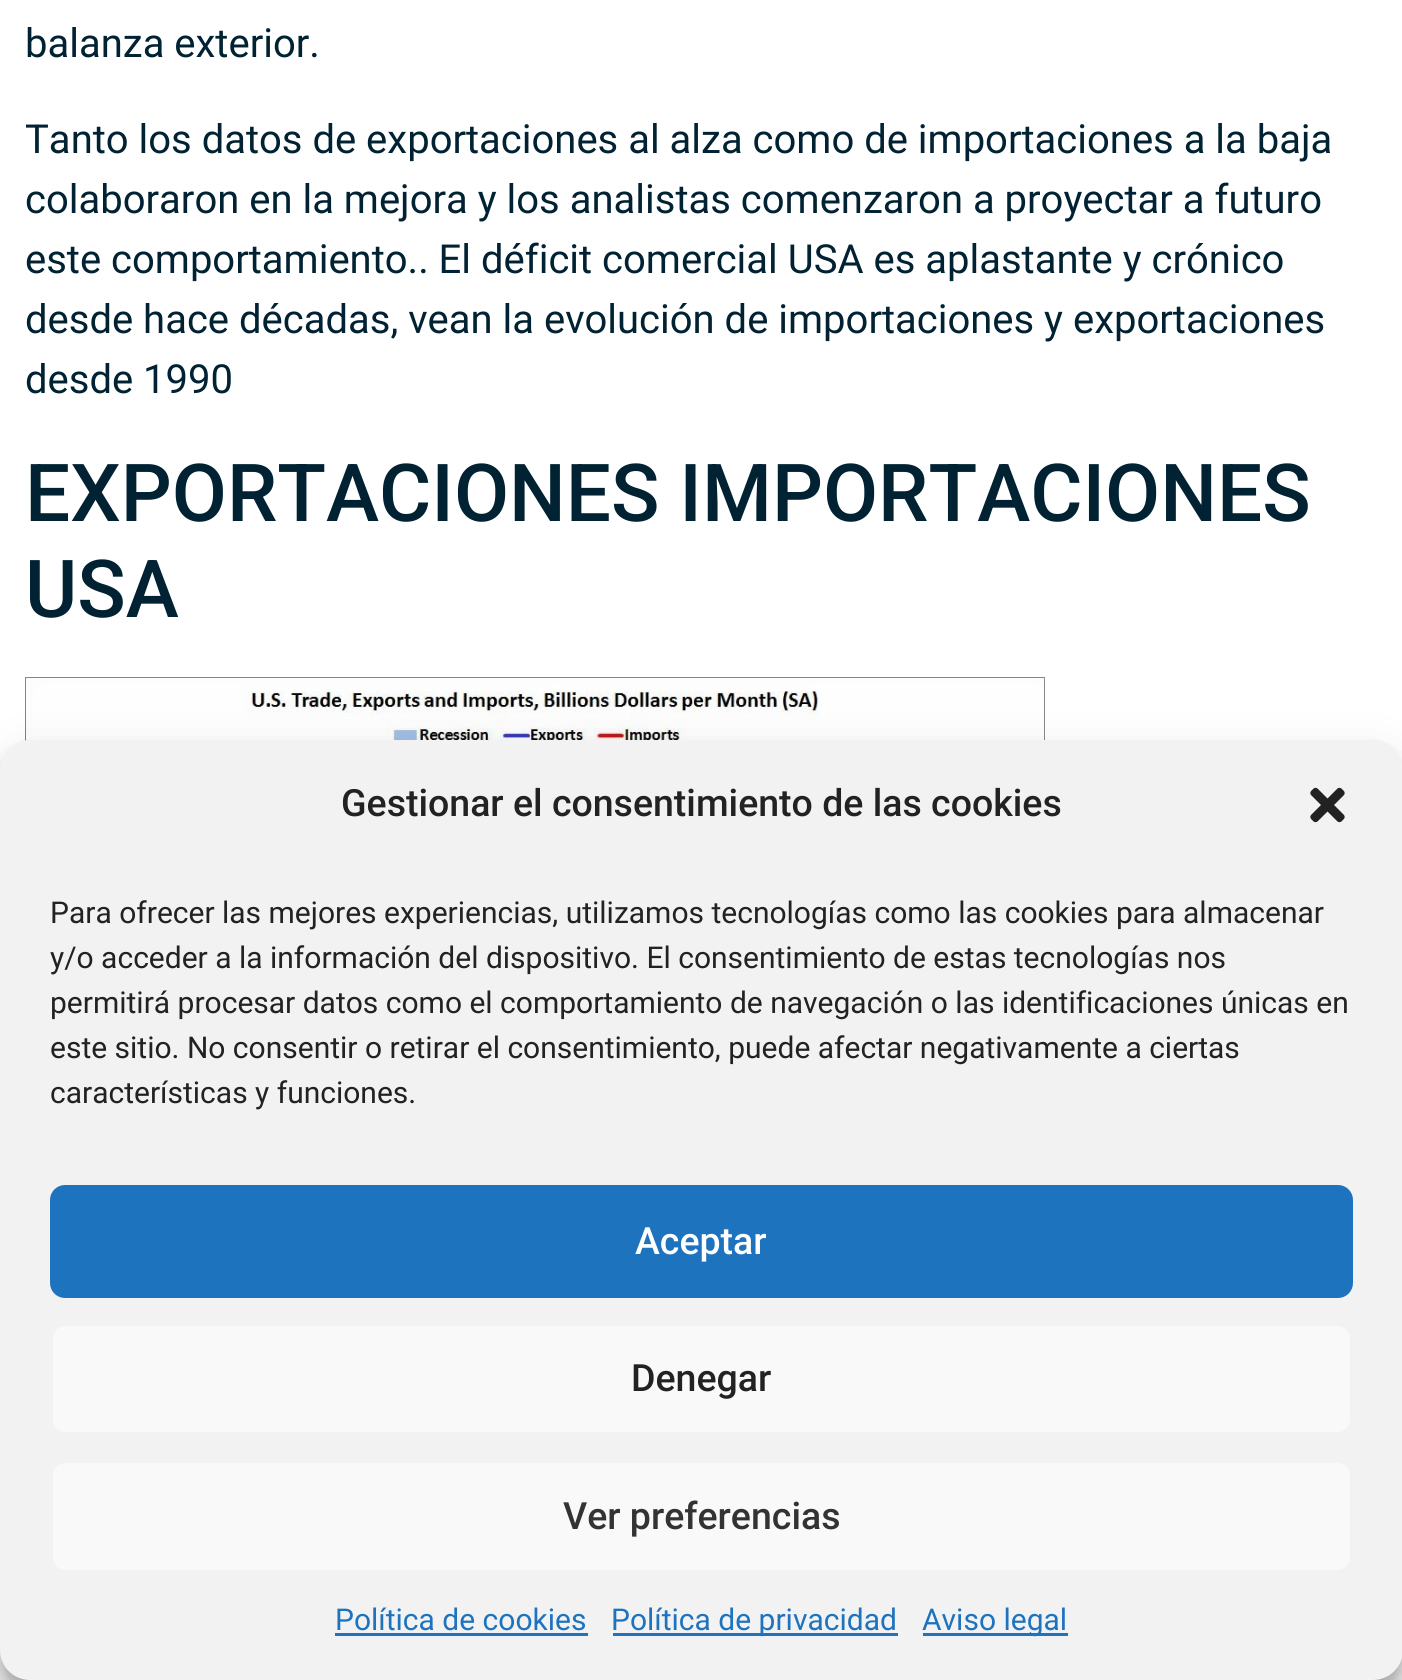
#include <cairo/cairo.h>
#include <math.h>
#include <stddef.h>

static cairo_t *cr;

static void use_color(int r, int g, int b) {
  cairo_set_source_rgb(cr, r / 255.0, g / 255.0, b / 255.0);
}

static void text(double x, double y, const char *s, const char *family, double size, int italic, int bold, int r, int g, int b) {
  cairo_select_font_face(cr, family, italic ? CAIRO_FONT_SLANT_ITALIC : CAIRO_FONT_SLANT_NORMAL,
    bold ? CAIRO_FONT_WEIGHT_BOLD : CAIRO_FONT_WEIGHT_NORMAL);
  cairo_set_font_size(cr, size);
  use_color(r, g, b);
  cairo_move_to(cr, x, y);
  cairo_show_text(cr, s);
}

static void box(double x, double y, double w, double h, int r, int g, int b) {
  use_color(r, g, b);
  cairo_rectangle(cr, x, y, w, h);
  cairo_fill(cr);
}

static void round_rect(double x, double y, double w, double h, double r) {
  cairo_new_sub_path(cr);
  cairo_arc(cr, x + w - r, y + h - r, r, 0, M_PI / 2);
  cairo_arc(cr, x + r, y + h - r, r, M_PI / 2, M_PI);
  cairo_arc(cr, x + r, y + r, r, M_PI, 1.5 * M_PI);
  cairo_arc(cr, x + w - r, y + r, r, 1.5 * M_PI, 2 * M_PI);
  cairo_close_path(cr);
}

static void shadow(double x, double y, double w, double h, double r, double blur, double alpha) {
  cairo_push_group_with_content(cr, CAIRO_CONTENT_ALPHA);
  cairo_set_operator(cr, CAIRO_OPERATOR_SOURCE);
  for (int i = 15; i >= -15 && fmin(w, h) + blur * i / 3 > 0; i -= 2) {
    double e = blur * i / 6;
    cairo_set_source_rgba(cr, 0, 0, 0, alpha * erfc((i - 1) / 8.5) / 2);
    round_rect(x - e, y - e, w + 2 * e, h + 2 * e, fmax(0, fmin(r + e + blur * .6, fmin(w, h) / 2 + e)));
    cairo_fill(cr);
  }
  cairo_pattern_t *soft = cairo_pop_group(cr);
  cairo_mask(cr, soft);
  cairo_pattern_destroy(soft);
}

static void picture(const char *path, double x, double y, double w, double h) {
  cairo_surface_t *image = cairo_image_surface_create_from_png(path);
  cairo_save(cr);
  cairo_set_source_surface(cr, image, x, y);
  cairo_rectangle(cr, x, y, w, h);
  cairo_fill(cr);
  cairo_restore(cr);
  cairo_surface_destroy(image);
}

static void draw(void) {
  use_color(255, 255, 255);
  cairo_paint(cr);
  picture("img_01.png", 25, 677, 1020, 64);
  use_color(0, 0, 0);
  shadow(0, 755, 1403, 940, 30, 7.5, 0.23);
  shadow(0, 765, 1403, 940, 30, 25, 0.19);
  use_color(242, 242, 242);
  round_rect(0, 740, 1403, 940, 30);
  cairo_fill(cr);
  picture("img_02.png", 1310, 787, 35, 36);
  use_color(30, 115, 190);
  round_rect(51.5, 1186.5, 1300, 110, 13.5);
  cairo_fill_preserve(cr);
  cairo_set_line_width(cr, 3);
  cairo_stroke(cr);
  use_color(249, 249, 249);
  round_rect(51.5, 1324.5, 1300, 109, 13.5);
  cairo_fill_preserve(cr);
  use_color(242, 242, 242);
  cairo_stroke(cr);
  use_color(249, 249, 249);
  round_rect(51.5, 1461.5, 1300, 110, 13.5);
  cairo_fill_preserve(cr);
  use_color(242, 242, 242);
  cairo_stroke(cr);
  box(335, 1633, 253, 3, 30, 115, 190);
  box(613, 1633, 285, 3, 30, 115, 190);
  box(923, 1633, 145, 3, 30, 115, 190);
  text(25, 57, "balanza exterior.", "Roboto", 40, 0, 0, 1, 34, 51);
  text(25, 153, "Tanto los datos de exportaciones al alza como de importaciones a la baja", "Roboto", 40, 0, 0, 1, 34, 51);
  text(25, 213, "colaboraron en la mejora y los analistas comenzaron a proyectar a futuro", "Roboto", 40, 0, 0, 1, 34, 51);
  text(25, 273, "este comportamiento.. El déficit comercial USA es aplastante y crónico", "Roboto", 40, 0, 0, 1, 34, 51);
  text(25, 333, "desde hace décadas, vean la evolución de importaciones y exportaciones", "Roboto", 40, 0, 0, 1, 34, 51);
  text(25, 393, "desde 1990", "Roboto", 40, 0, 0, 1, 34, 51);
  text(25, 521, "EXPORTACIONES IMPORTACIONES", "Roboto Medium", 80, 0, 0, 1, 34, 51);
  text(25, 617, "USA", "Roboto Medium", 80, 0, 0, 1, 34, 51);
  text(341, 816, "Gestionar el consentimiento de las cookies", "Roboto Medium", 37.5, 0, 0, 34, 34, 34);
  text(50, 923, "Para ofrecer las mejores experiencias, utilizamos tecnologías como las cookies para almacenar", "Roboto", 30, 0, 0, 34, 34, 34);
  text(50, 968, "y/o acceder a la información del dispositivo. El consentimiento de estas tecnologías nos", "Roboto", 30, 0, 0, 34, 34, 34);
  text(50, 1013, "permitirá procesar datos como el comportamiento de navegación o las identificaciones únicas en", "Roboto", 30, 0, 0, 34, 34, 34);
  text(50, 1058, "este sitio. No consentir o retirar el consentimiento, puede afectar negativamente a ciertas", "Roboto", 30, 0, 0, 34, 34, 34);
  text(50, 1103, "características y funciones.", "Roboto", 30, 0, 0, 34, 34, 34);
  text(635, 1254, "Aceptar", "Roboto Medium", 37.5, 0, 0, 255, 255, 255);
  text(631, 1391, "Denegar", "Roboto Medium", 37.5, 0, 0, 34, 34, 34);
  text(563, 1529, "Ver preferencias", "Roboto Medium", 37.5, 0, 0, 51, 51, 51);
  text(335, 1630, "Política de cookies", "Roboto", 30, 0, 0, 30, 115, 190);
  text(611, 1630, "Política de privacidad", "Roboto", 30, 0, 0, 30, 115, 190);
  text(922, 1630, "Aviso legal", "Roboto", 30, 0, 0, 30, 115, 190);
}

int main(void) {
  cairo_surface_t *surface = cairo_image_surface_create(CAIRO_FORMAT_RGB24, 1402, 1680);
  cr = cairo_create(surface);
  cairo_font_options_t *options = cairo_font_options_create();
  cairo_font_options_set_hint_metrics(options, CAIRO_HINT_METRICS_OFF);
  cairo_font_options_set_hint_style(options, CAIRO_HINT_STYLE_NONE);
  cairo_set_font_options(cr, options);
  cairo_set_miter_limit(cr, 4);
  draw();
  cairo_surface_write_to_png(surface, "out.png");
  cairo_font_options_destroy(options);
  cairo_destroy(cr);
  cairo_surface_destroy(surface);
  return 0;
}
